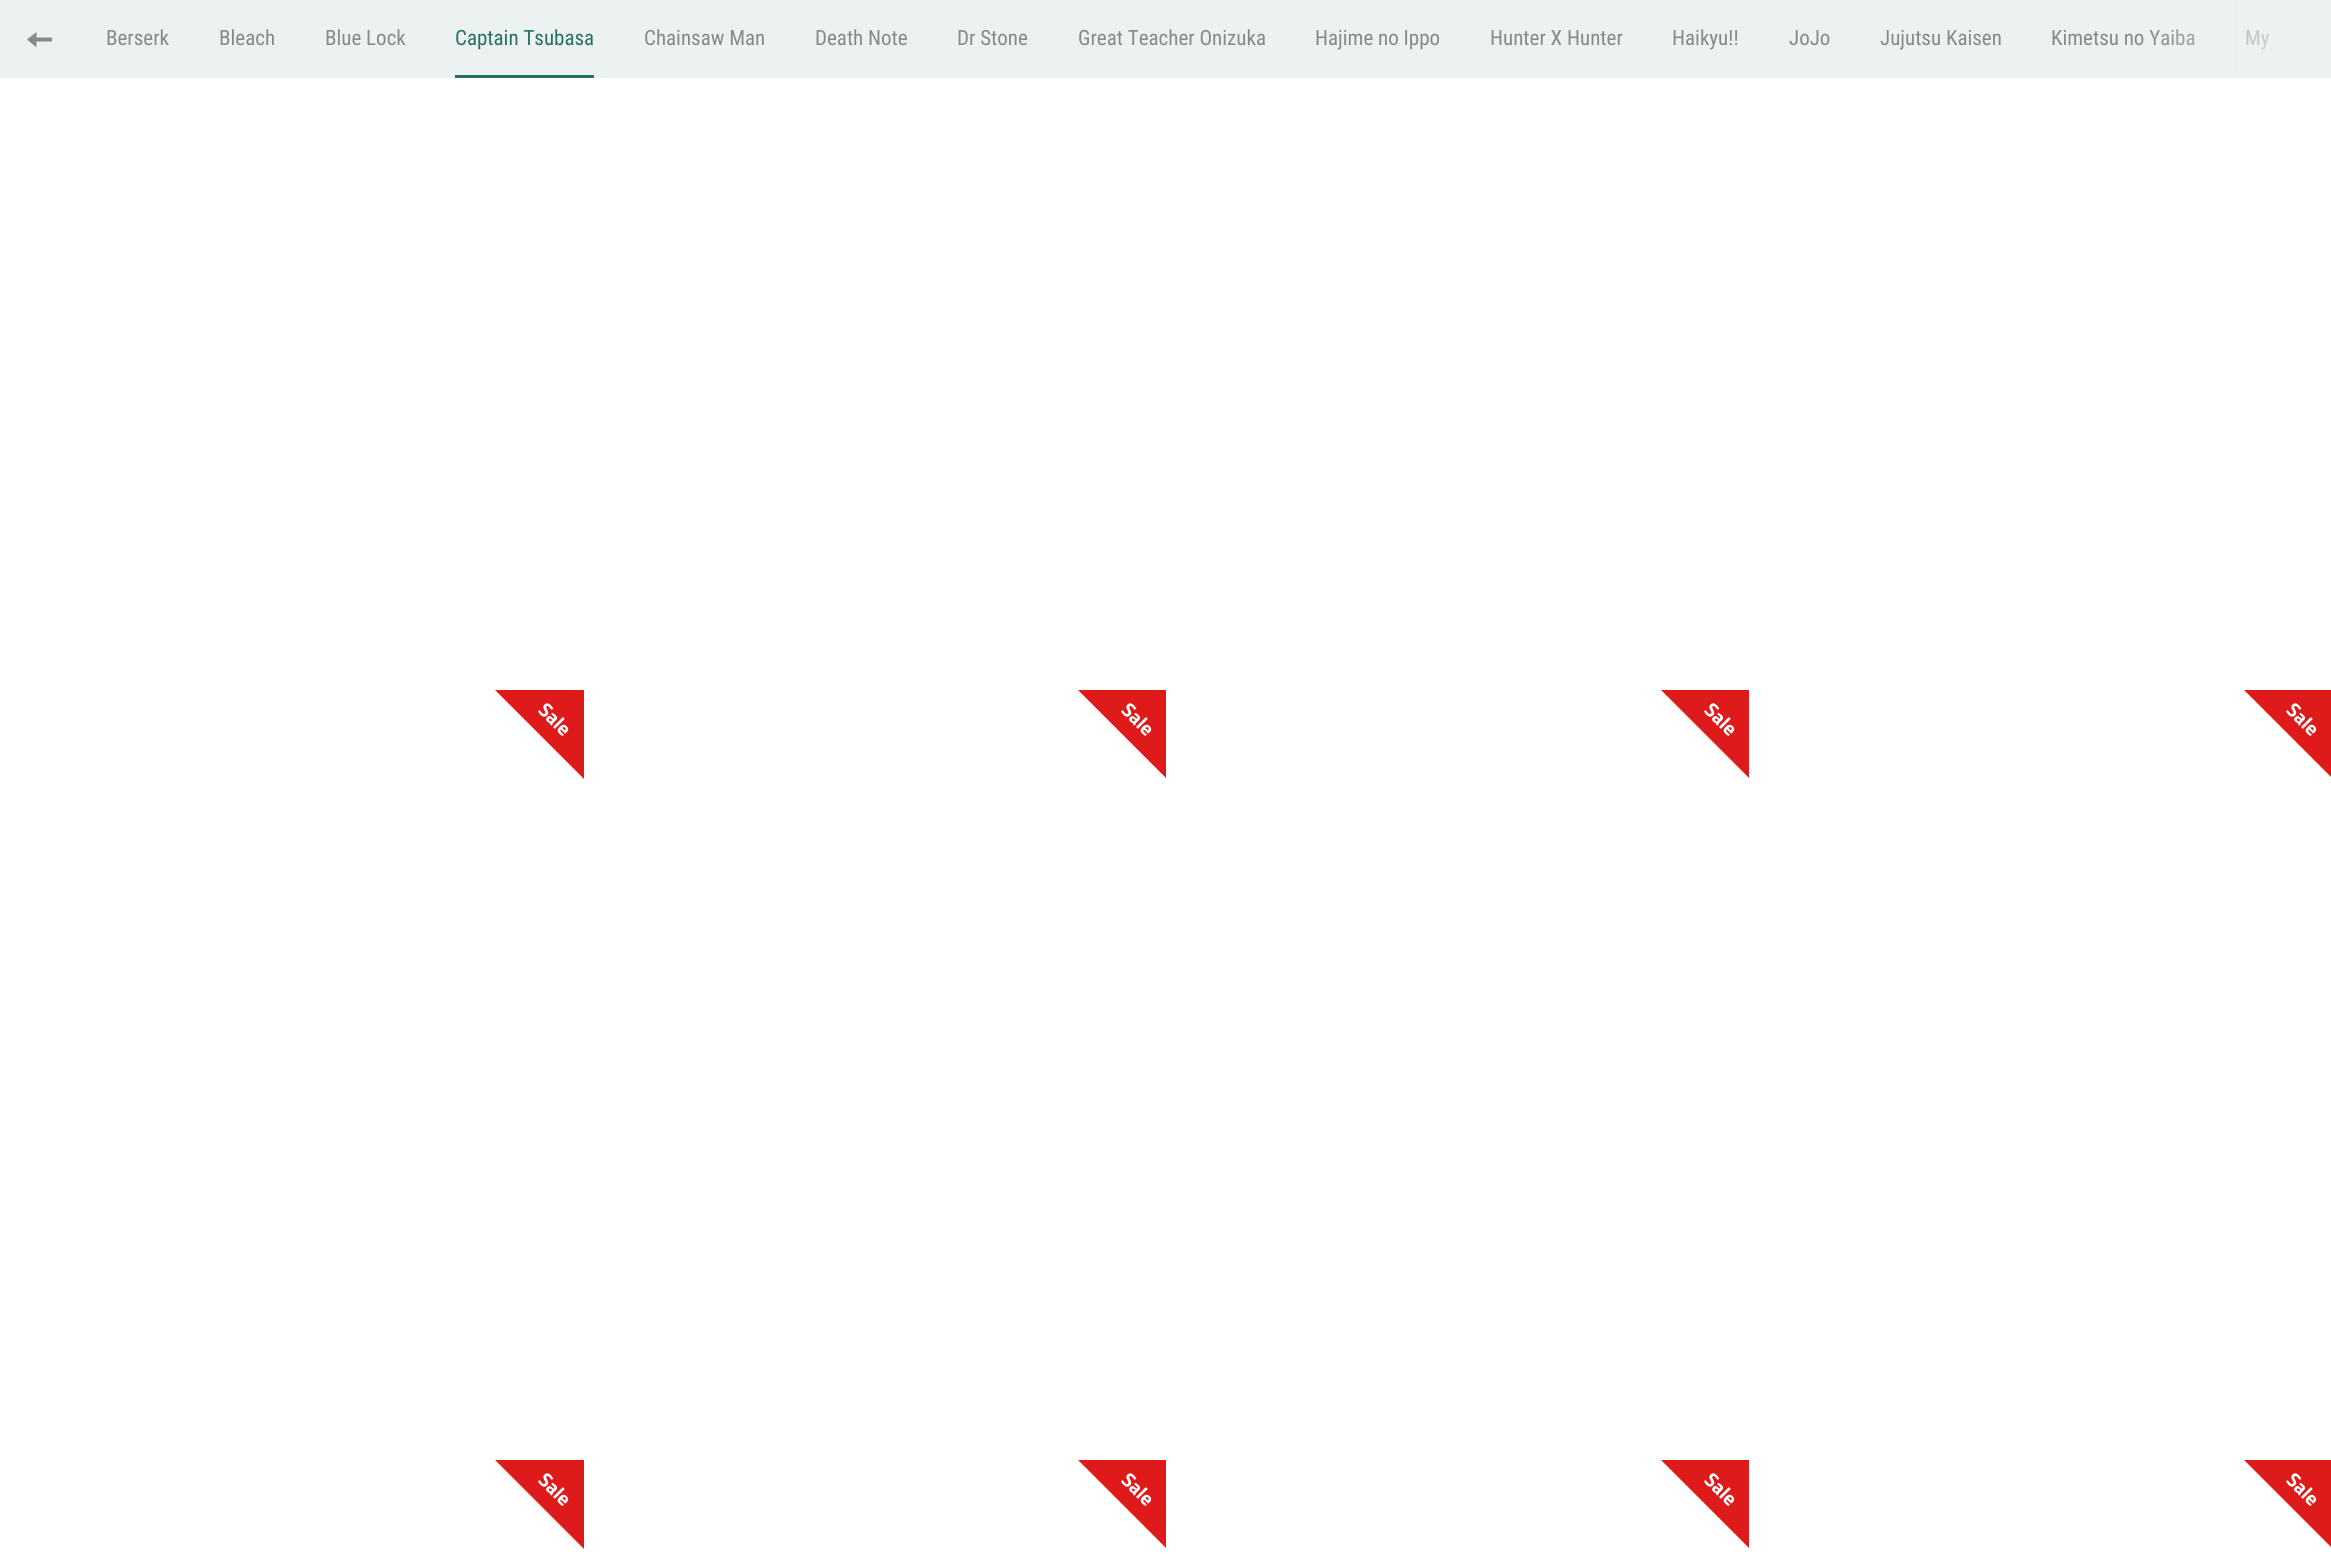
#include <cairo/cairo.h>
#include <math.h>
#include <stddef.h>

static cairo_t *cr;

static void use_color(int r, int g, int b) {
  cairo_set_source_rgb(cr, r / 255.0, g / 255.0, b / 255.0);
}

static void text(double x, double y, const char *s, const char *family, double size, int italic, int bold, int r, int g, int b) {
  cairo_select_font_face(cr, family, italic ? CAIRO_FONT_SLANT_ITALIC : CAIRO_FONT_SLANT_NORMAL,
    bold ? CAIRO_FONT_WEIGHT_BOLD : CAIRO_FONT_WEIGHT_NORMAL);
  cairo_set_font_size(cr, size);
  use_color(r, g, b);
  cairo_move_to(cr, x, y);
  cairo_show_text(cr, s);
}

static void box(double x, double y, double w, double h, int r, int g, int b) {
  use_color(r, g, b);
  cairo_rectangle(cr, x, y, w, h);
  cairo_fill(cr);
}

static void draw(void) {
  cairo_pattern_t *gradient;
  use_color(255, 255, 255);
  cairo_paint(cr);
  box(0, 0, 2330, 78, 236, 242, 241);
  use_color(137, 137, 137);
  cairo_new_path(cr);
  cairo_move_to(cr, 36.5, 37.5);
  cairo_line_to(cr, 36.5, 32);
  cairo_line_to(cr, 27, 39.5);
  cairo_line_to(cr, 36.5, 47.5);
  cairo_line_to(cr, 36.5, 41.5);
  cairo_line_to(cr, 52, 41.5);
  cairo_line_to(cr, 52, 37.5);
  cairo_close_path(cr);
  cairo_fill(cr);
  box(455, 75, 139, 3, 38, 112, 102);
  cairo_save(cr);
  cairo_rectangle(cr, 0, 690, 584, 770);
  cairo_clip(cr);
  use_color(222, 26, 26);
  cairo_new_path(cr);
  cairo_move_to(cr, 502, 560);
  cairo_line_to(cr, 714, 772);
  cairo_line_to(cr, 645, 840);
  cairo_line_to(cr, 433, 628);
  cairo_close_path(cr);
  cairo_fill(cr);
  cairo_restore(cr);
  cairo_save(cr);
  cairo_rectangle(cr, 584, 690, 582, 770);
  cairo_clip(cr);
  use_color(222, 26, 26);
  cairo_new_path(cr);
  cairo_move_to(cr, 1085, 560);
  cairo_line_to(cr, 1297, 772);
  cairo_line_to(cr, 1228, 840);
  cairo_line_to(cr, 1016, 628);
  cairo_close_path(cr);
  cairo_fill(cr);
  cairo_restore(cr);
  cairo_save(cr);
  cairo_rectangle(cr, 1166, 690, 583, 770);
  cairo_clip(cr);
  use_color(222, 26, 26);
  cairo_new_path(cr);
  cairo_move_to(cr, 1668, 560);
  cairo_line_to(cr, 1880, 772);
  cairo_line_to(cr, 1811, 840);
  cairo_line_to(cr, 1599, 628);
  cairo_close_path(cr);
  cairo_fill(cr);
  cairo_restore(cr);
  cairo_save(cr);
  cairo_rectangle(cr, 1749, 690, 582, 770);
  cairo_clip(cr);
  use_color(222, 26, 26);
  cairo_new_path(cr);
  cairo_move_to(cr, 2250, 560);
  cairo_line_to(cr, 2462, 772);
  cairo_line_to(cr, 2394, 840);
  cairo_line_to(cr, 2182, 628);
  cairo_close_path(cr);
  cairo_fill(cr);
  cairo_restore(cr);
  cairo_save(cr);
  cairo_rectangle(cr, 0, 1460, 584, 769);
  cairo_clip(cr);
  use_color(222, 26, 26);
  cairo_new_path(cr);
  cairo_move_to(cr, 502, 1329);
  cairo_line_to(cr, 714, 1541);
  cairo_line_to(cr, 645, 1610);
  cairo_line_to(cr, 433, 1398);
  cairo_close_path(cr);
  cairo_fill(cr);
  cairo_restore(cr);
  cairo_save(cr);
  cairo_rectangle(cr, 584, 1460, 582, 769);
  cairo_clip(cr);
  use_color(222, 26, 26);
  cairo_new_path(cr);
  cairo_move_to(cr, 1085, 1329);
  cairo_line_to(cr, 1297, 1541);
  cairo_line_to(cr, 1228, 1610);
  cairo_line_to(cr, 1016, 1398);
  cairo_close_path(cr);
  cairo_fill(cr);
  cairo_restore(cr);
  cairo_save(cr);
  cairo_rectangle(cr, 1166, 1460, 583, 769);
  cairo_clip(cr);
  use_color(222, 26, 26);
  cairo_new_path(cr);
  cairo_move_to(cr, 1668, 1329);
  cairo_line_to(cr, 1880, 1541);
  cairo_line_to(cr, 1811, 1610);
  cairo_line_to(cr, 1599, 1398);
  cairo_close_path(cr);
  cairo_fill(cr);
  cairo_restore(cr);
  cairo_save(cr);
  cairo_rectangle(cr, 1749, 1460, 582, 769);
  cairo_clip(cr);
  use_color(222, 26, 26);
  cairo_new_path(cr);
  cairo_move_to(cr, 2250, 1329);
  cairo_line_to(cr, 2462, 1541);
  cairo_line_to(cr, 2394, 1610);
  cairo_line_to(cr, 2182, 1398);
  cairo_close_path(cr);
  cairo_fill(cr);
  cairo_restore(cr);
  text(106, 45, "Berserk", "Roboto Condensed", 21, 0, 0, 137, 137, 137);
  text(219, 45, "Bleach", "Roboto Condensed", 21, 0, 0, 137, 137, 137);
  text(325, 45, "Blue Lock", "Roboto Condensed", 21, 0, 0, 137, 137, 137);
  text(455, 45, "Captain Tsubasa", "Roboto Condensed", 21, 0, 0, 38, 112, 102);
  text(644, 45, "Chainsaw Man", "Roboto Condensed", 21, 0, 0, 137, 137, 137);
  text(815, 45, "Death Note", "Roboto Condensed", 21, 0, 0, 137, 137, 137);
  text(957, 45, "Dr Stone", "Roboto Condensed", 21, 0, 0, 137, 137, 137);
  text(1078, 45, "Great Teacher Onizuka", "Roboto Condensed", 21, 0, 0, 137, 137, 137);
  text(1315, 45, "Hajime no Ippo", "Roboto Condensed", 21, 0, 0, 137, 137, 137);
  text(1490, 45, "Hunter X Hunter", "Roboto Condensed", 21, 0, 0, 137, 137, 137);
  text(1672, 45, "Haikyu!!", "Roboto Condensed", 21, 0, 0, 137, 137, 137);
  text(1789, 45, "JoJo", "Roboto Condensed", 21, 0, 0, 137, 137, 137);
  text(1880, 45, "Jujutsu Kaisen", "Roboto Condensed", 21, 0, 0, 137, 137, 137);
  text(2051, 45, "Kimetsu no Yaiba", "Roboto Condensed", 21, 0, 0, 137, 137, 137);
  text(2245, 45, "My", "Roboto Condensed", 21, 0, 0, 137, 137, 137);
  gradient = cairo_pattern_create_linear(2144, 39, 2331, 39);
  cairo_pattern_add_color_stop_rgba(gradient, 0, 0.925, 0.949, 0.945, 0);
  cairo_pattern_add_color_stop_rgba(gradient, 1, 0.925, 0.949, 0.945, 1);
  cairo_set_source(cr, gradient);
  cairo_pattern_destroy(gradient);
  cairo_rectangle(cr, 2150, 0, 181, 78);
  cairo_fill(cr);
  cairo_save(cr);
  cairo_translate(cr, 537, 711);
  cairo_rotate(cr, 45 * M_PI / 180);
  text(0, 0, "Sale", "Titillium Web", 20, 0, 1, 255, 255, 255);
  cairo_restore(cr);
  cairo_save(cr);
  cairo_translate(cr, 1120, 711);
  cairo_rotate(cr, 45 * M_PI / 180);
  text(0, 0, "Sale", "Titillium Web", 20, 0, 1, 255, 255, 255);
  cairo_restore(cr);
  cairo_save(cr);
  cairo_translate(cr, 1703, 711);
  cairo_rotate(cr, 45 * M_PI / 180);
  text(0, 0, "Sale", "Titillium Web", 20, 0, 1, 255, 255, 255);
  cairo_restore(cr);
  cairo_save(cr);
  cairo_translate(cr, 2285, 711);
  cairo_rotate(cr, 45 * M_PI / 180);
  text(0, 0, "Sale", "Titillium Web", 20, 0, 1, 255, 255, 255);
  cairo_restore(cr);
  cairo_save(cr);
  cairo_translate(cr, 537, 1481);
  cairo_rotate(cr, 45 * M_PI / 180);
  text(0, 0, "Sale", "Titillium Web", 20, 0, 1, 255, 255, 255);
  cairo_restore(cr);
  cairo_save(cr);
  cairo_translate(cr, 1120, 1481);
  cairo_rotate(cr, 45 * M_PI / 180);
  text(0, 0, "Sale", "Titillium Web", 20, 0, 1, 255, 255, 255);
  cairo_restore(cr);
  cairo_save(cr);
  cairo_translate(cr, 1703, 1481);
  cairo_rotate(cr, 45 * M_PI / 180);
  text(0, 0, "Sale", "Titillium Web", 20, 0, 1, 255, 255, 255);
  cairo_restore(cr);
  cairo_save(cr);
  cairo_translate(cr, 2285, 1481);
  cairo_rotate(cr, 45 * M_PI / 180);
  text(0, 0, "Sale", "Titillium Web", 20, 0, 1, 255, 255, 255);
  cairo_restore(cr);
}

int main(void) {
  cairo_surface_t *surface = cairo_image_surface_create(CAIRO_FORMAT_RGB24, 2331, 1568);
  cr = cairo_create(surface);
  cairo_font_options_t *options = cairo_font_options_create();
  cairo_font_options_set_hint_metrics(options, CAIRO_HINT_METRICS_OFF);
  cairo_font_options_set_hint_style(options, CAIRO_HINT_STYLE_NONE);
  cairo_set_font_options(cr, options);
  cairo_set_miter_limit(cr, 4);
  draw();
  cairo_surface_write_to_png(surface, "out.png");
  cairo_font_options_destroy(options);
  cairo_destroy(cr);
  cairo_surface_destroy(surface);
  return 0;
}
